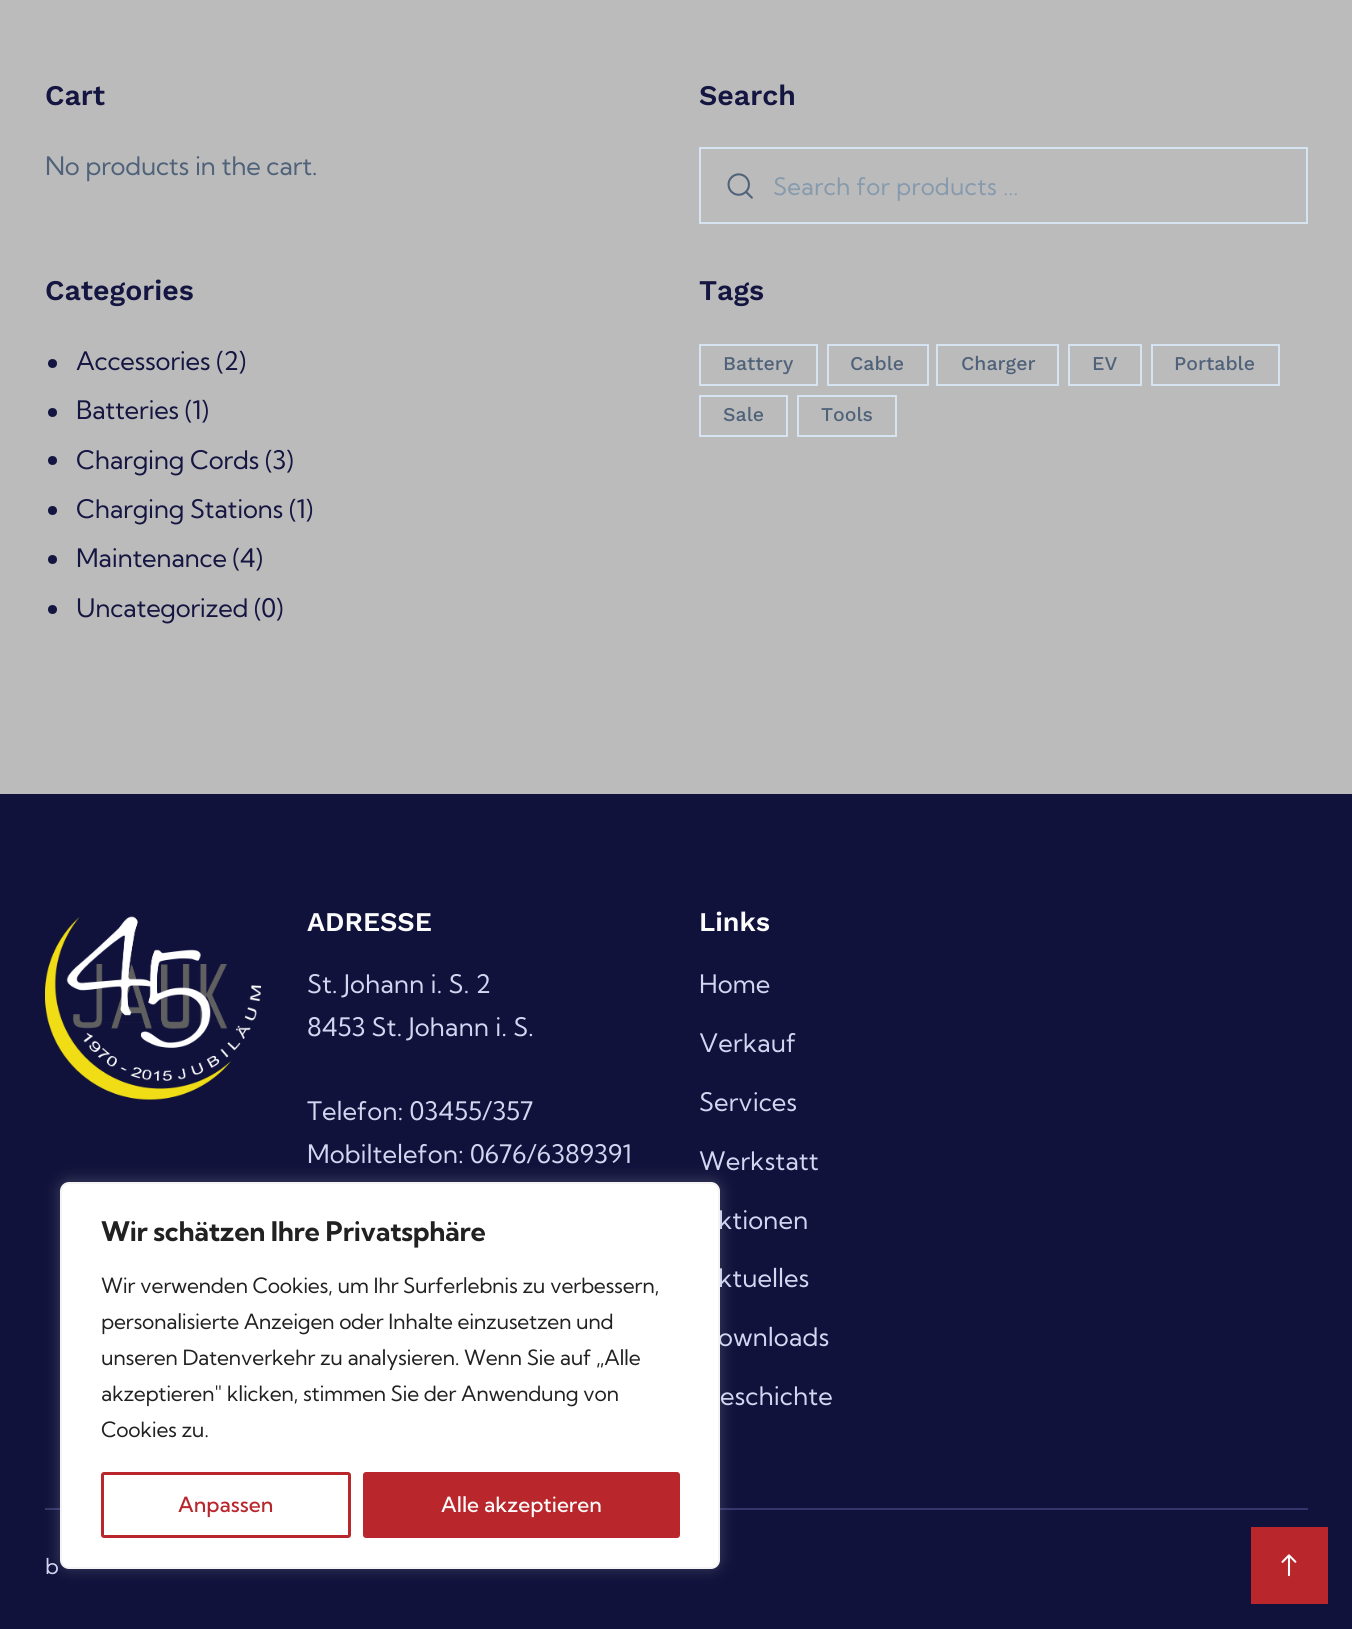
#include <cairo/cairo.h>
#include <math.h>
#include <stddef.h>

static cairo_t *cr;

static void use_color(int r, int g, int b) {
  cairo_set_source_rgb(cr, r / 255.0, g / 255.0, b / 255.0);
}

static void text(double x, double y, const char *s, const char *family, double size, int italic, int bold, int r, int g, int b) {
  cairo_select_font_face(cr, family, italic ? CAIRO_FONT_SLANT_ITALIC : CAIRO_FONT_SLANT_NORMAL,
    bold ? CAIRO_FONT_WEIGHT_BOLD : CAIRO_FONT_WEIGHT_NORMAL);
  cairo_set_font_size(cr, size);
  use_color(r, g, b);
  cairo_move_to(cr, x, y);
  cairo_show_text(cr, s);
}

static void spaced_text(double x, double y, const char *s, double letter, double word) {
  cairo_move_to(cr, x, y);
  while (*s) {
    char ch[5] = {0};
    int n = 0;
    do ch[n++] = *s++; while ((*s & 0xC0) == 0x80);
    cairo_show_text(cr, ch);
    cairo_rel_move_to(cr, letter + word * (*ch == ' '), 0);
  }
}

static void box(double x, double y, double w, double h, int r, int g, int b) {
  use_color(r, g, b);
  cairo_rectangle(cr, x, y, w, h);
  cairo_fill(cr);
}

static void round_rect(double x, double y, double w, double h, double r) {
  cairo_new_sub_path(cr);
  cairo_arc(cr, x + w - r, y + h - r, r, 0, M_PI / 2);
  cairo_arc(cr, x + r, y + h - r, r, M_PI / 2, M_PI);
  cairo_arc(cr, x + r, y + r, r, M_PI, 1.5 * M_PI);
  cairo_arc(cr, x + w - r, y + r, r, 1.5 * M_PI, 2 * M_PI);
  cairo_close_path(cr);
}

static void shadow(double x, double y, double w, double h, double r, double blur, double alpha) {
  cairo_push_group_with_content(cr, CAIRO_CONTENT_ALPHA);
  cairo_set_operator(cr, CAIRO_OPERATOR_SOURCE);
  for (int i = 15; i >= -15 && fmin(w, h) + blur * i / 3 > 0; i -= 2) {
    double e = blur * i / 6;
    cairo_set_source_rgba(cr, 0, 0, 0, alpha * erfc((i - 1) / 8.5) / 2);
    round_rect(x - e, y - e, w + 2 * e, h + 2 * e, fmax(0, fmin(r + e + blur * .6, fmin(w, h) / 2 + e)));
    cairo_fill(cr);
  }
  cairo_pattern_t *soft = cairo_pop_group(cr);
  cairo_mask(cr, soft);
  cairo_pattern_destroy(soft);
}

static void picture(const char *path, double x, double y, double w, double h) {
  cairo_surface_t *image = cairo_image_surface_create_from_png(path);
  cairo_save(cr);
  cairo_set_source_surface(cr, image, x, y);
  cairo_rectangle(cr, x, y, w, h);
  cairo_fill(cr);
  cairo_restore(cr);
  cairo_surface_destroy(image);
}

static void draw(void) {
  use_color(187, 187, 187);
  cairo_paint(cr);
  cairo_rectangle(cr, 700, 148, 607, 75);
  use_color(214, 228, 241);
  cairo_stroke(cr);
  picture("img_01.png", 727, 173, 26, 26);
  use_color(20, 21, 65);
  cairo_arc(cr, 52.5, 363.5, 4.5, 0, 2 * M_PI);
  cairo_fill(cr);
  cairo_arc(cr, 52.5, 412.5, 4.5, 0, 2 * M_PI);
  cairo_fill(cr);
  cairo_arc(cr, 52.5, 460.5, 4.5, 0, 2 * M_PI);
  cairo_fill(cr);
  cairo_arc(cr, 52.5, 510.5, 4.5, 0, 2 * M_PI);
  cairo_fill(cr);
  cairo_arc(cr, 52.5, 559.5, 4.5, 0, 2 * M_PI);
  cairo_fill(cr);
  cairo_arc(cr, 52.5, 609.5, 4.5, 0, 2 * M_PI);
  cairo_fill(cr);
  cairo_rectangle(cr, 700, 345, 117, 40);
  use_color(214, 228, 241);
  cairo_stroke(cr);
  cairo_rectangle(cr, 828, 345, 100, 40);
  cairo_stroke(cr);
  cairo_rectangle(cr, 937, 345, 121, 40);
  cairo_stroke(cr);
  cairo_rectangle(cr, 1069, 345, 72, 40);
  cairo_stroke(cr);
  cairo_rectangle(cr, 1152, 345, 127, 40);
  cairo_stroke(cr);
  cairo_rectangle(cr, 700, 396, 87, 40);
  cairo_stroke(cr);
  cairo_rectangle(cr, 798, 396, 98, 40);
  cairo_stroke(cr);
  box(0, 794, 1352, 835, 16, 18, 60);
  picture("img_02.png", 45, 916, 216, 184);
  box(45, 1508, 1263, 2, 51, 53, 107);
  use_color(172, 171, 171);
  shadow(60, 1181, 660, 387, 9, 7.5, 0.3);
  box(1251, 1527, 77, 77, 185, 39, 44);
  picture("img_03.png", 1281, 1554, 16, 23);
  text(45, 105, "Cart", "Work Sans SemiBold", 28.5, 0, 0, 20, 21, 65);
  cairo_select_font_face(cr, "Kumbh Sans", CAIRO_FONT_SLANT_NORMAL, CAIRO_FONT_WEIGHT_NORMAL);
  cairo_set_font_size(cr, 25.5);
  use_color(79, 98, 122);
  spaced_text(45, 175, "No products in the cart.", -0.3, 0);
  text(699, 105, "Search", "Work Sans SemiBold", 28.5, 0, 0, 20, 21, 65);
  cairo_select_font_face(cr, "Kumbh Sans", CAIRO_FONT_SLANT_NORMAL, CAIRO_FONT_WEIGHT_NORMAL);
  cairo_set_font_size(cr, 24);
  use_color(133, 154, 173);
  spaced_text(773, 195, "Search for products …", 0.15, 0);
  text(45, 300, "Categories", "Work Sans SemiBold", 28.5, 0, 0, 20, 21, 65);
  cairo_select_font_face(cr, "Kumbh Sans", CAIRO_FONT_SLANT_NORMAL, CAIRO_FONT_WEIGHT_NORMAL);
  cairo_set_font_size(cr, 25.5);
  spaced_text(76, 370, "Accessories (2)", -0.3, 0);
  spaced_text(76, 419, "Batteries (1)", -0.3, 0);
  spaced_text(76, 469, "Charging Cords (3)", -0.3, 0);
  spaced_text(76, 518, "Charging Stations (1)", -0.3, 0);
  spaced_text(76, 567, "Maintenance (4)", -0.3, 0);
  spaced_text(76, 617, "Uncategorized (0)", -0.3, 0);
  text(699, 300, "Tags", "Work Sans SemiBold", 28.5, 0, 0, 20, 21, 65);
  text(723, 370, "Battery", "Work Sans Medium", 19.5, 0, 0, 79, 98, 122);
  text(850, 370, "Cable", "Work Sans Medium", 19.5, 0, 0, 79, 98, 122);
  text(961, 370, "Charger", "Work Sans Medium", 19.5, 0, 0, 79, 98, 122);
  text(1092, 370, "EV", "Work Sans Medium", 19.5, 0, 0, 79, 98, 122);
  text(1174, 370, "Portable", "Work Sans Medium", 19.5, 0, 0, 79, 98, 122);
  text(723, 421, "Sale", "Work Sans Medium", 19.5, 0, 0, 79, 98, 122);
  text(821, 421, "Tools", "Work Sans Medium", 19.5, 0, 0, 79, 98, 122);
  text(307, 931, "ADRESSE", "Work Sans SemiBold", 27, 0, 0, 252, 252, 252);
  text(307, 993, "St. Johann i. S. 2", "Kumbh Sans", 25.5, 0, 0, 212, 213, 240);
  text(307, 1036, "8453 St. Johann i. S.", "Kumbh Sans", 25.5, 0, 0, 212, 213, 240);
  text(307, 1120, "Telefon: 03455/357", "Kumbh Sans", 25.5, 0, 0, 212, 213, 240);
  text(307, 1163, "Mobiltelefon: 0676/6389391", "Kumbh Sans", 25.5, 0, 0, 212, 213, 240);
  text(699, 931, "Links", "Work Sans SemiBold", 27, 0, 0, 252, 252, 252);
  text(699, 993, "Home", "Kumbh Sans", 25.5, 0, 0, 212, 213, 240);
  text(699, 1052, "Verkauf", "Kumbh Sans", 25.5, 0, 0, 212, 213, 240);
  text(699, 1111, "Services", "Kumbh Sans", 25.5, 0, 0, 212, 213, 240);
  text(699, 1170, "Werkstatt", "Kumbh Sans", 25.5, 0, 0, 212, 213, 240);
  text(718, 1229, "ktionen", "Kumbh Sans", 25.5, 0, 0, 212, 213, 240);
  text(718, 1287, "ktuelles", "Kumbh Sans", 25.5, 0, 0, 212, 213, 240);
  text(718, 1346, "ownloads", "Kumbh Sans", 25.5, 0, 0, 212, 213, 240);
  text(720, 1405, "eschichte", "Kumbh Sans", 25.5, 0, 0, 212, 213, 240);
  text(45, 1574, "b", "Kumbh Sans", 22, 0, 0, 212, 213, 240);
  use_color(255, 255, 255);
  round_rect(61, 1183, 658, 385, 8);
  cairo_fill_preserve(cr);
  use_color(244, 244, 244);
  cairo_stroke(cr);
  cairo_select_font_face(cr, "Kumbh Sans", CAIRO_FONT_SLANT_NORMAL, CAIRO_FONT_WEIGHT_BOLD);
  cairo_set_font_size(cr, 27);
  use_color(33, 33, 33);
  spaced_text(101, 1241, "Wir schätzen Ihre Privatsphäre", -0.3, 0);
  cairo_select_font_face(cr, "Kumbh Sans", CAIRO_FONT_SLANT_NORMAL, CAIRO_FONT_WEIGHT_NORMAL);
  cairo_set_font_size(cr, 21);
  spaced_text(101, 1293, "Wir verwenden Cookies, um Ihr Surferlebnis zu verbessern,", -0.3, 0);
  spaced_text(101, 1329, "personalisierte Anzeigen oder Inhalte einzusetzen und", -0.3, 0);
  spaced_text(101, 1365, "unseren Datenverkehr zu analysieren. Wenn Sie auf „Alle", -0.3, 0);
  spaced_text(101, 1401, "akzeptieren\" klicken, stimmen Sie der Anwendung von", -0.3, 0);
  spaced_text(101, 1437, "Cookies zu.", -0.3, 0);
  round_rect(102.5, 1473.5, 247, 63, 1.5);
  use_color(185, 39, 44);
  cairo_set_line_width(cr, 3);
  cairo_stroke(cr);
  text(178, 1512, "Anpassen", "Kumbh Sans Medium", 21, 0, 0, 185, 39, 44);
  round_rect(364.5, 1473.5, 314, 63, 1.5);
  cairo_fill_preserve(cr);
  cairo_stroke(cr);
  text(441, 1512, "Alle akzeptieren", "Kumbh Sans Medium", 21, 0, 0, 252, 252, 252);
}

int main(void) {
  cairo_surface_t *surface = cairo_image_surface_create(CAIRO_FORMAT_RGB24, 1352, 1629);
  cr = cairo_create(surface);
  cairo_font_options_t *options = cairo_font_options_create();
  cairo_font_options_set_hint_metrics(options, CAIRO_HINT_METRICS_OFF);
  cairo_font_options_set_hint_style(options, CAIRO_HINT_STYLE_NONE);
  cairo_set_font_options(cr, options);
  cairo_set_miter_limit(cr, 4);
  draw();
  cairo_surface_write_to_png(surface, "out.png");
  cairo_font_options_destroy(options);
  cairo_destroy(cr);
  cairo_surface_destroy(surface);
  return 0;
}
